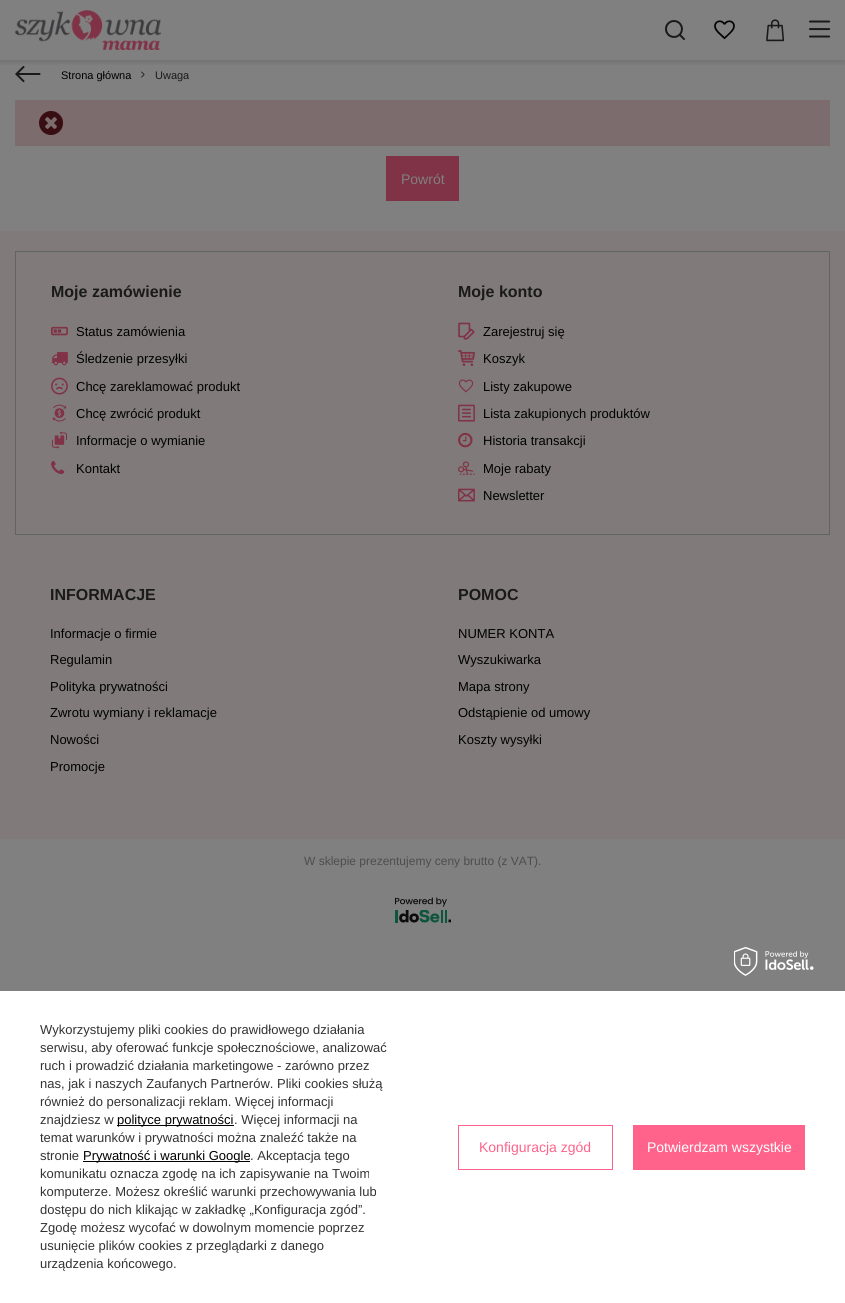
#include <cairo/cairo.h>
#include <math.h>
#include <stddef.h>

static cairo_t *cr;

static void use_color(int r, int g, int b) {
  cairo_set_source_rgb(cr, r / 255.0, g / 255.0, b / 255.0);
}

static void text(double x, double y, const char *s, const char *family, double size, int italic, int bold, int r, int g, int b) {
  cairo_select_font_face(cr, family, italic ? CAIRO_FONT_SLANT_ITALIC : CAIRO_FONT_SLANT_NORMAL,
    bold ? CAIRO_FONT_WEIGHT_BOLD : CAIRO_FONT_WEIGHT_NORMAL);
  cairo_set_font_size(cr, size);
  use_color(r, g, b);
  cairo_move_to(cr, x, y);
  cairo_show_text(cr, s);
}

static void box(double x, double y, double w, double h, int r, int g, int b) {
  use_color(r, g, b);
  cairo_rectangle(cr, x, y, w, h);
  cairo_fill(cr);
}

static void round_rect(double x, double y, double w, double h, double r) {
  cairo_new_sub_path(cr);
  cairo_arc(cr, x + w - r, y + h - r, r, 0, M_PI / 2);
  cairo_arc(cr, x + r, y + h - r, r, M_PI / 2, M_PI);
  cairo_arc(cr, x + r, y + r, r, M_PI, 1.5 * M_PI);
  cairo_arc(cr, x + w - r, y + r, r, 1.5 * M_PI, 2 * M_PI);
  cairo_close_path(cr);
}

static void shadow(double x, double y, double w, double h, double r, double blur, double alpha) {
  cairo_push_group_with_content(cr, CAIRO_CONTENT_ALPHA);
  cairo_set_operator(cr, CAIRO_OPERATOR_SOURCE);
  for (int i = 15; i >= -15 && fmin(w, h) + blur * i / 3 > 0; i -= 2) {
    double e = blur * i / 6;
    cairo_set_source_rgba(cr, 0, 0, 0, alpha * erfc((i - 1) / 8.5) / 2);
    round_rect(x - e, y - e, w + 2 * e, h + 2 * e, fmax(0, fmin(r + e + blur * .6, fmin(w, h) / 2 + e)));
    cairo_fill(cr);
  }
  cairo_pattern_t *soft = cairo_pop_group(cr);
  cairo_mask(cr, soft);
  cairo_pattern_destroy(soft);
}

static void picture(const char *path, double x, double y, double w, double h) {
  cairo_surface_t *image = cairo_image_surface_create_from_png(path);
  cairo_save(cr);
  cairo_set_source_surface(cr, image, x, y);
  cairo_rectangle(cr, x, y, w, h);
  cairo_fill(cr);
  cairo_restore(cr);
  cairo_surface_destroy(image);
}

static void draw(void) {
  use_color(128, 128, 128);
  cairo_paint(cr);
  picture("img_06.png", 15, 66, 26, 17);
  cairo_save(cr);
  cairo_rectangle(cr, 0, 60, 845, 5);
  cairo_clip(cr);
  use_color(0, 0, 0);
  shadow(0, 3, 845, 60, 0, 2, 0.1);
  cairo_restore(cr);
  picture("img_01.png", 15, 10, 146, 40);
  picture("img_02.png", 665, 20, 20, 20);
  picture("img_03.png", 714, 20, 21, 20);
  picture("img_04.png", 766, 19, 19, 23);
  picture("img_05.png", 809, 20, 22, 18);
  picture("img_07.png", 141, 71, 4, 7);
  box(15, 100, 815, 46, 124, 108, 109);
  picture("img_08.png", 39, 111, 24, 24);
  box(386, 156, 73, 45, 128, 50, 70);
  box(0, 231, 845, 608, 128, 123, 122);
  box(15, 251, 815, 1, 98, 100, 100);
  box(15, 534, 408, 1, 98, 100, 100);
  box(15, 251, 1, 284, 98, 100, 100);
  picture("img_09.png", 51, 326, 17, 10);
  picture("img_10.png", 51, 352, 17, 14);
  picture("img_11.png", 51, 377, 17, 18);
  picture("img_12.png", 52, 404, 15, 18);
  picture("img_13.png", 51, 431, 16, 18);
  picture("img_14.png", 51, 460, 14, 15);
  box(829, 251, 1, 284, 98, 100, 100);
  box(423, 534, 407, 1, 98, 100, 100);
  picture("img_15.png", 458, 322, 17, 18);
  picture("img_16.png", 458, 350, 17, 16);
  picture("img_17.png", 458, 379, 16, 14);
  picture("img_18.png", 458, 404, 17, 18);
  picture("img_19.png", 458, 432, 15, 16);
  picture("img_20.png", 458, 461, 17, 14);
  picture("img_21.png", 458, 488, 17, 14);
  picture("img_22.png", 395, 897, 56, 26);
  box(0, 991, 845, 312, 255, 255, 255);
  picture("img_23.png", 734, 947, 80, 29);
  box(117, 1125, 117, 1, 0, 0, 0);
  box(83, 1161, 167, 1, 0, 0, 0);
  cairo_rectangle(cr, 458.5, 1125.5, 154, 44);
  use_color(255, 99, 139);
  cairo_set_line_width(cr, 1);
  cairo_stroke(cr);
  box(633, 1125, 172, 45, 255, 99, 139);
  text(61, 79, "Strona główna", "Liberation Sans", 11, 0, 0, 0, 0, 0);
  text(155, 79, "Uwaga", "Liberation Sans", 11, 0, 0, 26, 26, 26);
  text(401, 184, "Powrót", "Liberation Sans", 14, 0, 0, 128, 128, 128);
  text(51, 297, "Moje zamówienie", "Liberation Sans", 16, 0, 1, 26, 26, 26);
  text(76, 336, "Status zamówienia", "Liberation Sans", 13, 0, 0, 0, 0, 0);
  text(76, 363, "Śledzenie przesyłki", "Liberation Sans", 13, 0, 0, 0, 0, 0);
  text(76, 391, "Chcę zareklamować produkt", "Liberation Sans", 13, 0, 0, 0, 0, 0);
  text(76, 418, "Chcę zwrócić produkt", "Liberation Sans", 13, 0, 0, 0, 0, 0);
  text(76, 445, "Informacje o wymianie", "Liberation Sans", 13, 0, 0, 0, 0, 0);
  text(76, 473, "Kontakt", "Liberation Sans", 13, 0, 0, 0, 0, 0);
  text(458, 297, "Moje konto", "Liberation Sans", 16, 0, 1, 26, 26, 26);
  text(483, 336, "Zarejestruj się", "Liberation Sans", 13, 0, 0, 0, 0, 0);
  text(483, 363, "Koszyk", "Liberation Sans", 13, 0, 0, 0, 0, 0);
  text(483, 391, "Listy zakupowe", "Liberation Sans", 13, 0, 0, 0, 0, 0);
  text(483, 418, "Lista zakupionych produktów", "Liberation Sans", 13, 0, 0, 0, 0, 0);
  text(483, 445, "Historia transakcji", "Liberation Sans", 13, 0, 0, 0, 0, 0);
  text(483, 473, "Moje rabaty", "Liberation Sans", 13, 0, 0, 0, 0, 0);
  text(483, 500, "Newsletter", "Liberation Sans", 13, 0, 0, 0, 0, 0);
  text(50, 600, "INFORMACJE", "Liberation Sans", 16, 0, 1, 26, 26, 26);
  text(50, 638, "Informacje o firmie", "Liberation Sans", 13, 0, 0, 0, 0, 0);
  text(50, 664, "Regulamin", "Liberation Sans", 13, 0, 0, 0, 0, 0);
  text(50, 691, "Polityka prywatności", "Liberation Sans", 13, 0, 0, 0, 0, 0);
  text(50, 717, "Zwrotu wymiany i reklamacje", "Liberation Sans", 13, 0, 0, 0, 0, 0);
  text(50, 744, "Nowości", "Liberation Sans", 13, 0, 0, 0, 0, 0);
  text(50, 771, "Promocje", "Liberation Sans", 13, 0, 0, 0, 0, 0);
  text(458, 600, "POMOC", "Liberation Sans", 16, 0, 1, 26, 26, 26);
  text(458, 638, "NUMER KONTA", "Liberation Sans", 13, 0, 0, 0, 0, 0);
  text(458, 664, "Wyszukiwarka", "Liberation Sans", 13, 0, 0, 0, 0, 0);
  text(458, 691, "Mapa strony", "Liberation Sans", 13, 0, 0, 0, 0, 0);
  text(458, 717, "Odstąpienie od umowy", "Liberation Sans", 13, 0, 0, 0, 0, 0);
  text(458, 744, "Koszty wysyłki", "Liberation Sans", 13, 0, 0, 0, 0, 0);
  text(304, 865, "W sklepie prezentujemy ceny brutto (z VAT).", "Liberation Sans", 12, 0, 0, 77, 77, 77);
  text(40, 1034, "Wykorzystujemy pliki cookies do prawidłowego działania", "Liberation Sans", 13, 0, 0, 51, 51, 51);
  text(40, 1052, "serwisu, aby oferować funkcje społecznościowe, analizować", "Liberation Sans", 13, 0, 0, 51, 51, 51);
  text(40, 1070, "ruch i prowadzić działania marketingowe - zarówno przez", "Liberation Sans", 13, 0, 0, 51, 51, 51);
  text(40, 1088, "nas, jak i naszych Zaufanych Partnerów. Pliki cookies służą", "Liberation Sans", 13, 0, 0, 51, 51, 51);
  text(40, 1106, "również do personalizacji reklam. Więcej informacji", "Liberation Sans", 13, 0, 0, 51, 51, 51);
  text(40, 1124, "znajdziesz w", "Liberation Sans", 13, 0, 0, 51, 51, 51);
  text(117, 1124, "polityce prywatności", "Liberation Sans", 13, 0, 0, 0, 0, 0);
  text(234, 1124, ". Więcej informacji na", "Liberation Sans", 13, 0, 0, 51, 51, 51);
  text(40, 1142, "temat warunków i prywatności można znaleźć także na", "Liberation Sans", 13, 0, 0, 51, 51, 51);
  text(40, 1160, "stronie", "Liberation Sans", 13, 0, 0, 51, 51, 51);
  text(83, 1160, "Prywatność i warunki Google", "Liberation Sans", 13, 0, 0, 0, 0, 0);
  text(250, 1160, ". Akceptacja tego", "Liberation Sans", 13, 0, 0, 51, 51, 51);
  text(40, 1178, "komunikatu oznacza zgodę na ich zapisywanie na Twoim", "Liberation Sans", 13, 0, 0, 51, 51, 51);
  text(40, 1196, "komputerze. Możesz określić warunki przechowywania lub", "Liberation Sans", 13, 0, 0, 51, 51, 51);
  text(40, 1214, "dostępu do nich klikając w zakładkę „Konfiguracja zgód”.", "Liberation Sans", 13, 0, 0, 51, 51, 51);
  text(40, 1232, "Zgodę możesz wycofać w dowolnym momencie poprzez", "Liberation Sans", 13, 0, 0, 51, 51, 51);
  text(40, 1250, "usunięcie plików cookies z przeglądarki z danego", "Liberation Sans", 13, 0, 0, 51, 51, 51);
  text(40, 1268, "urządzenia końcowego.", "Liberation Sans", 13, 0, 0, 51, 51, 51);
  text(479, 1152, "Konfiguracja zgód", "Liberation Sans", 14, 0, 0, 255, 99, 139);
  text(647, 1152, "Potwierdzam wszystkie", "Liberation Sans", 14, 0, 0, 255, 255, 255);
}

int main(void) {
  cairo_surface_t *surface = cairo_image_surface_create(CAIRO_FORMAT_RGB24, 845, 1303);
  cr = cairo_create(surface);
  cairo_font_options_t *options = cairo_font_options_create();
  cairo_font_options_set_hint_metrics(options, CAIRO_HINT_METRICS_OFF);
  cairo_font_options_set_hint_style(options, CAIRO_HINT_STYLE_NONE);
  cairo_set_font_options(cr, options);
  cairo_set_miter_limit(cr, 4);
  draw();
  cairo_surface_write_to_png(surface, "out.png");
  cairo_font_options_destroy(options);
  cairo_destroy(cr);
  cairo_surface_destroy(surface);
  return 0;
}
